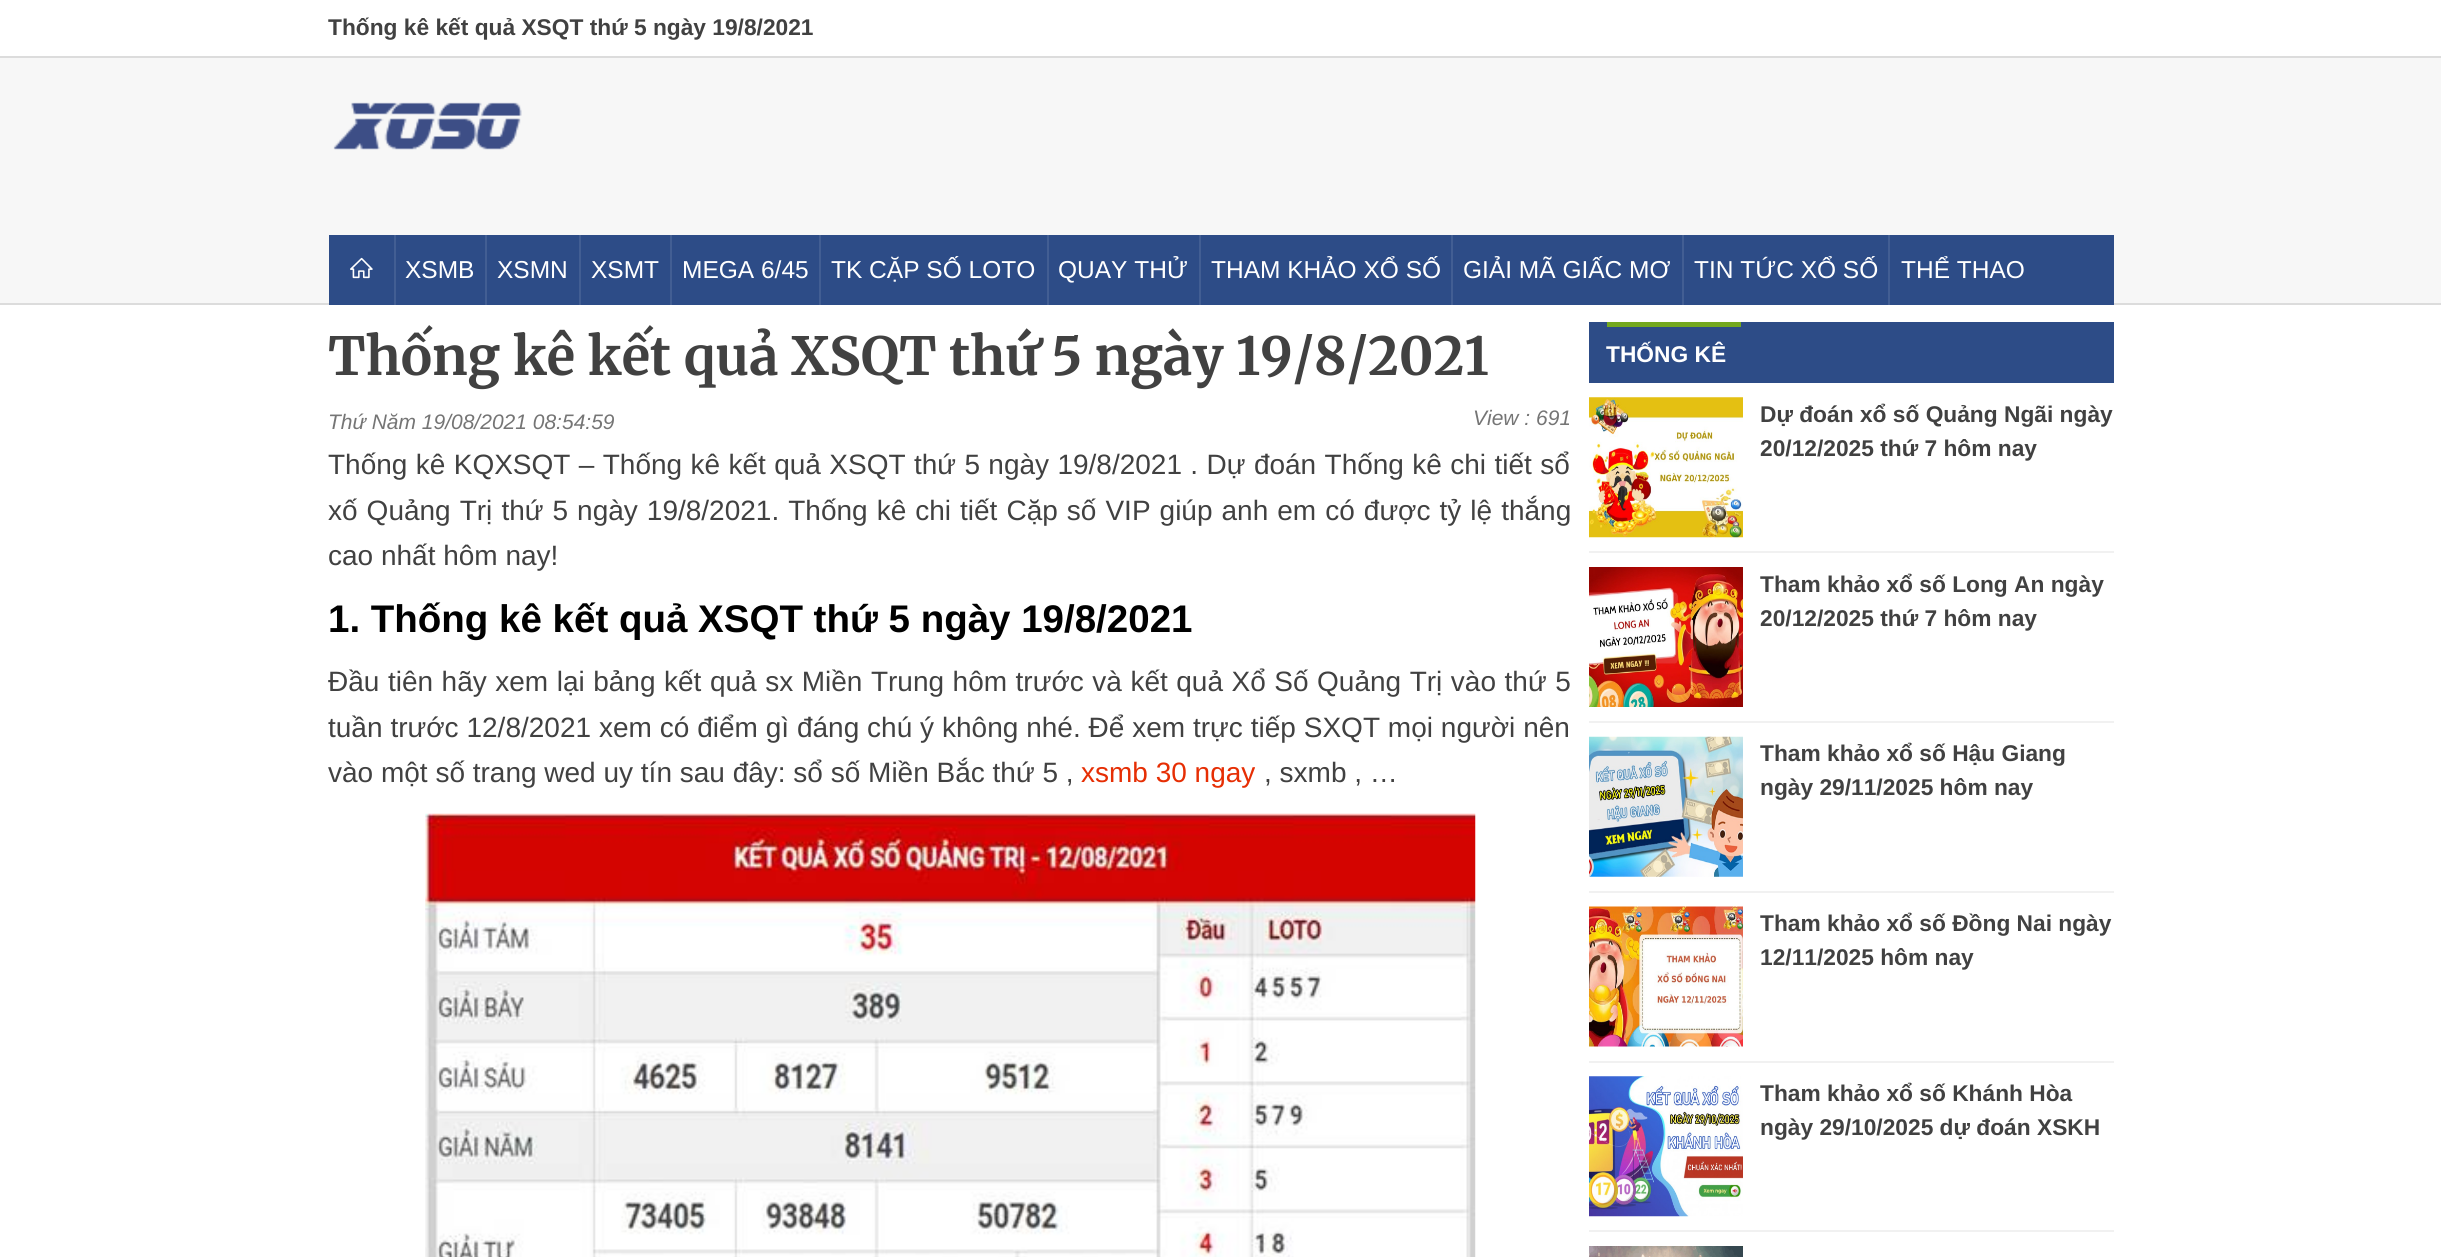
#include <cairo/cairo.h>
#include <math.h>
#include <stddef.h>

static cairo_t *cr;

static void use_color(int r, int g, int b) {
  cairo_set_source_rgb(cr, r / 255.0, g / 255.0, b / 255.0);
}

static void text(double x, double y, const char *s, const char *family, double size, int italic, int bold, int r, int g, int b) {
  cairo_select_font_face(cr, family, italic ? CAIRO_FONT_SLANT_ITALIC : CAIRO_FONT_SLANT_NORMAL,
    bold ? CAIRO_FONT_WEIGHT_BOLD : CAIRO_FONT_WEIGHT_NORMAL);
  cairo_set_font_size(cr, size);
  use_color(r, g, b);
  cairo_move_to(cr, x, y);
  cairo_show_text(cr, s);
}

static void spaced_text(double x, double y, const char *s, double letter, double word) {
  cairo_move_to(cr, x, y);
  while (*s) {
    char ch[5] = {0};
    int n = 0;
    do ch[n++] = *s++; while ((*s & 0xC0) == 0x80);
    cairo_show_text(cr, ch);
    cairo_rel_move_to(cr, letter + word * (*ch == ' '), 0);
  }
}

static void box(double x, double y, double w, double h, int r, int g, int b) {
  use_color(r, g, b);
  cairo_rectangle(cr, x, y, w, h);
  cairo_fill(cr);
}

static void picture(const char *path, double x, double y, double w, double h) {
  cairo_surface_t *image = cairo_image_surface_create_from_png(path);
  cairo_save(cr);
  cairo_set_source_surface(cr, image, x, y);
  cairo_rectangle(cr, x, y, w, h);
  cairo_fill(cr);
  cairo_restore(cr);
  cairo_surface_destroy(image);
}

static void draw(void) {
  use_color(255, 255, 255);
  cairo_paint(cr);
  box(0, 58, 2441, 245, 247, 247, 247);
  box(0, 56, 2441, 2, 220, 220, 220);
  box(0, 303, 2441, 2, 220, 220, 220);
  picture("img_01.png", 333, 102, 189, 48);
  box(329, 235, 1785, 70, 45, 76, 135);
  box(394, 235, 2, 70, 66, 94, 147);
  picture("img_02.png", 350, 257, 23, 22);
  box(485, 235, 2, 70, 66, 94, 147);
  box(579, 235, 2, 70, 66, 94, 147);
  box(670, 235, 2, 70, 66, 94, 147);
  box(819, 235, 2, 70, 66, 94, 147);
  box(1047, 235, 2, 70, 66, 94, 147);
  box(1199, 235, 2, 70, 66, 94, 147);
  box(1451, 235, 2, 70, 66, 94, 147);
  box(1682, 235, 2, 70, 66, 94, 147);
  box(1888, 235, 2, 70, 66, 94, 147);
  picture("img_03.png", 425, 813, 1051, 444);
  box(1589, 322, 525, 61, 45, 76, 135);
  box(1607, 322, 134, 5, 115, 168, 31);
  box(1589, 551, 525, 2, 241, 241, 241);
  picture("img_04.png", 1589, 397, 154, 141);
  box(1589, 721, 525, 2, 241, 241, 241);
  picture("img_05.png", 1589, 567, 154, 140);
  box(1589, 891, 525, 2, 241, 241, 241);
  picture("img_06.png", 1589, 736, 154, 141);
  box(1589, 1061, 525, 2, 241, 241, 241);
  picture("img_07.png", 1589, 906, 154, 141);
  box(1589, 1230, 525, 2, 241, 241, 241);
  picture("img_08.png", 1589, 1076, 154, 141);
  picture("img_09.png", 1589, 1246, 154, 11);
  text(328, 35, "Thống kê kết quả XSQT thứ 5 ngày 19/8/2021", "Liberation Sans", 22.75, 0, 1, 65, 65, 65);
  text(405, 278, "XSMB", "Liberation Sans", 24.5, 0, 0, 255, 255, 255);
  text(497, 278, "XSMN", "Liberation Sans", 24.5, 0, 0, 255, 255, 255);
  text(591, 278, "XSMT", "Liberation Sans", 24.5, 0, 0, 255, 255, 255);
  text(682, 278, "MEGA 6/45", "Liberation Sans", 24.5, 0, 0, 255, 255, 255);
  text(831, 278, "TK CẶP SỐ LOTO", "Liberation Sans", 24.5, 0, 0, 255, 255, 255);
  text(1058, 278, "QUAY THỬ", "Liberation Sans", 24.5, 0, 0, 255, 255, 255);
  text(1211, 278, "THAM KHẢO XỔ SỐ", "Liberation Sans", 24.5, 0, 0, 255, 255, 255);
  text(1463, 278, "GIẢI MÃ GIẤC MƠ", "Liberation Sans", 24.5, 0, 0, 255, 255, 255);
  text(1694, 278, "TIN TỨC XỔ SỐ", "Liberation Sans", 24.5, 0, 0, 255, 255, 255);
  text(1901, 278, "THỂ THAO", "Liberation Sans", 24.5, 0, 0, 255, 255, 255);
  text(328, 375, "Thống kê kết quả XSQT thứ 5 ngày 19/8/2021", "Merriweather", 52.5, 0, 1, 65, 65, 65);
  text(328, 429, "Thứ Năm 19/08/2021 08:54:59", "Liberation Sans", 21, 1, 0, 117, 117, 117);
  text(1473, 425, "View : 691", "Liberation Sans", 21, 1, 0, 117, 117, 117);
  cairo_select_font_face(cr, "Liberation Sans", CAIRO_FONT_SLANT_NORMAL, CAIRO_FONT_WEIGHT_NORMAL);
  cairo_set_font_size(cr, 28);
  use_color(65, 65, 65);
  spaced_text(328, 474, "Thống kê KQXSQT – Thống kê kết quả XSQT thứ 5 ngày 19/8/2021 . Dự đoán Thống kê chi tiết sổ", 0, 0.6);
  spaced_text(328, 520, "xố Quảng Trị thứ 5 ngày 19/8/2021. Thống kê chi tiết Cặp số VIP giúp anh em có được tỷ lệ thắng", 0, 1.25);
  text(328, 565, "cao nhất hôm nay!", "Liberation Sans", 28, 0, 0, 65, 65, 65);
  text(328, 632, "1. Thống kê kết quả XSQT thứ 5 ngày 19/8/2021", "Liberation Sans", 38.5, 0, 1, 0, 0, 0);
  cairo_select_font_face(cr, "Liberation Sans", CAIRO_FONT_SLANT_NORMAL, CAIRO_FONT_WEIGHT_NORMAL);
  cairo_set_font_size(cr, 28);
  use_color(65, 65, 65);
  spaced_text(328, 691, "Đầu tiên hãy xem lại bảng kết quả sx Miền Trung hôm trước và kết quả Xổ Số Quảng Trị vào thứ 5", 0, 0.75);
  spaced_text(328, 737, "tuần trước 12/8/2021 xem có điểm gì đáng chú ý không nhé. Để xem trực tiếp SXQT mọi người nên", 0, 0.1);
  text(328, 782, "vào một số trang wed uy tín sau đây: sổ số Miền Bắc thứ 5 ,", "Liberation Sans", 28, 0, 0, 65, 65, 65);
  text(1081, 782, "xsmb 30 ngay", "Liberation Sans", 28, 0, 0, 230, 46, 4);
  text(1264, 782, ", sxmb , …", "Liberation Sans", 28, 0, 0, 65, 65, 65);
  text(1606, 362, "THỐNG KÊ", "Liberation Sans", 22.75, 0, 1, 255, 255, 255);
  text(1760, 422, "Dự đoán xổ số Quảng Ngãi ngày", "Liberation Sans", 22.75, 0, 1, 65, 65, 65);
  text(1760, 456, "20/12/2025 thứ 7 hôm nay", "Liberation Sans", 22.75, 0, 1, 65, 65, 65);
  text(1760, 592, "Tham khảo xổ số Long An ngày", "Liberation Sans", 22.75, 0, 1, 65, 65, 65);
  text(1760, 626, "20/12/2025 thứ 7 hôm nay", "Liberation Sans", 22.75, 0, 1, 65, 65, 65);
  text(1760, 761, "Tham khảo xổ số Hậu Giang", "Liberation Sans", 22.75, 0, 1, 65, 65, 65);
  text(1760, 795, "ngày 29/11/2025 hôm nay", "Liberation Sans", 22.75, 0, 1, 65, 65, 65);
  text(1760, 931, "Tham khảo xổ số Đồng Nai ngày", "Liberation Sans", 22.75, 0, 1, 65, 65, 65);
  text(1760, 965, "12/11/2025 hôm nay", "Liberation Sans", 22.75, 0, 1, 65, 65, 65);
  text(1760, 1101, "Tham khảo xổ số Khánh Hòa", "Liberation Sans", 22.75, 0, 1, 65, 65, 65);
  text(1760, 1135, "ngày 29/10/2025 dự đoán XSKH", "Liberation Sans", 22.75, 0, 1, 65, 65, 65);
}

int main(void) {
  cairo_surface_t *surface = cairo_image_surface_create(CAIRO_FORMAT_RGB24, 2441, 1257);
  cr = cairo_create(surface);
  cairo_font_options_t *options = cairo_font_options_create();
  cairo_font_options_set_hint_metrics(options, CAIRO_HINT_METRICS_OFF);
  cairo_font_options_set_hint_style(options, CAIRO_HINT_STYLE_NONE);
  cairo_set_font_options(cr, options);
  cairo_set_miter_limit(cr, 4);
  draw();
  cairo_surface_write_to_png(surface, "out.png");
  cairo_font_options_destroy(options);
  cairo_destroy(cr);
  cairo_surface_destroy(surface);
  return 0;
}
